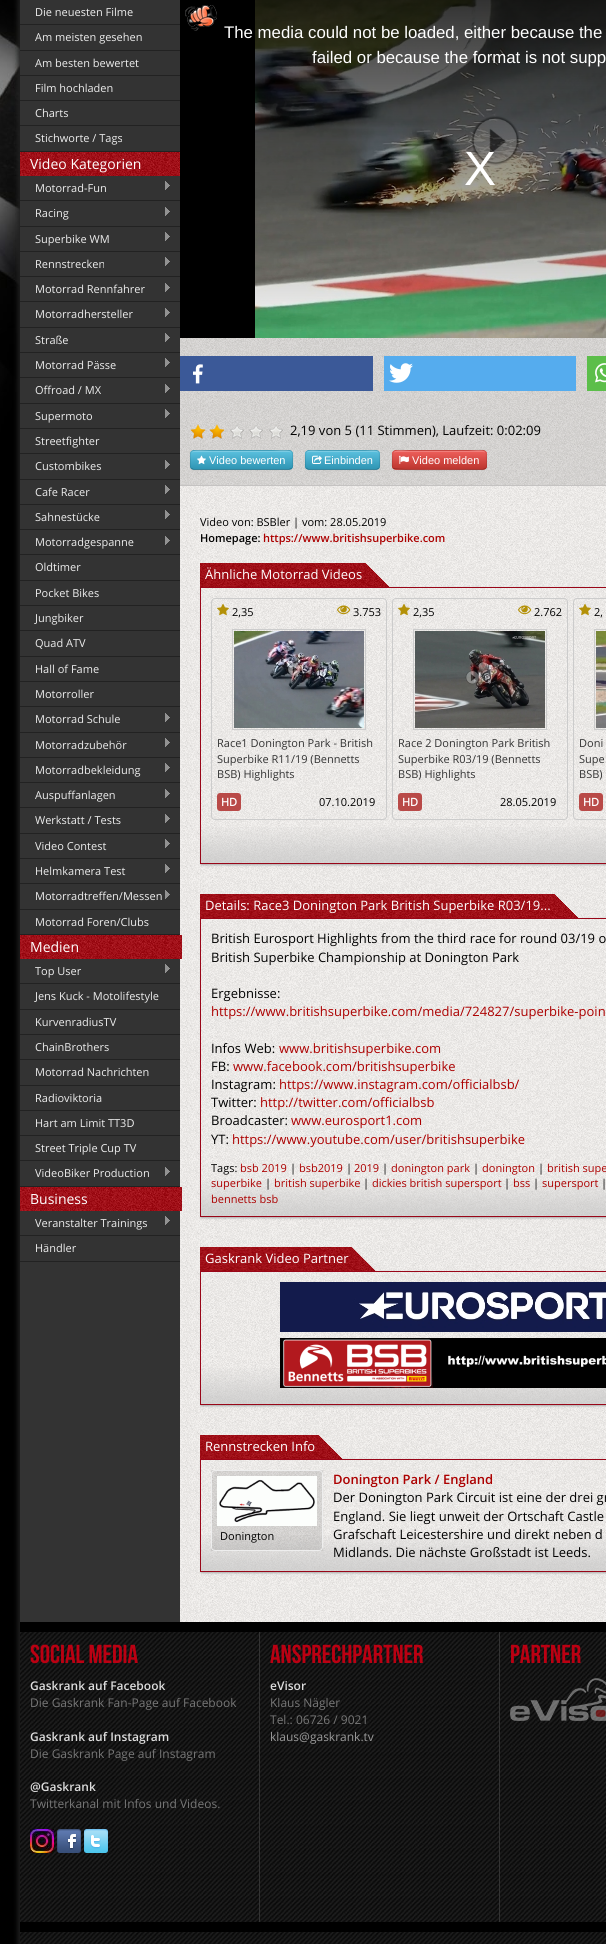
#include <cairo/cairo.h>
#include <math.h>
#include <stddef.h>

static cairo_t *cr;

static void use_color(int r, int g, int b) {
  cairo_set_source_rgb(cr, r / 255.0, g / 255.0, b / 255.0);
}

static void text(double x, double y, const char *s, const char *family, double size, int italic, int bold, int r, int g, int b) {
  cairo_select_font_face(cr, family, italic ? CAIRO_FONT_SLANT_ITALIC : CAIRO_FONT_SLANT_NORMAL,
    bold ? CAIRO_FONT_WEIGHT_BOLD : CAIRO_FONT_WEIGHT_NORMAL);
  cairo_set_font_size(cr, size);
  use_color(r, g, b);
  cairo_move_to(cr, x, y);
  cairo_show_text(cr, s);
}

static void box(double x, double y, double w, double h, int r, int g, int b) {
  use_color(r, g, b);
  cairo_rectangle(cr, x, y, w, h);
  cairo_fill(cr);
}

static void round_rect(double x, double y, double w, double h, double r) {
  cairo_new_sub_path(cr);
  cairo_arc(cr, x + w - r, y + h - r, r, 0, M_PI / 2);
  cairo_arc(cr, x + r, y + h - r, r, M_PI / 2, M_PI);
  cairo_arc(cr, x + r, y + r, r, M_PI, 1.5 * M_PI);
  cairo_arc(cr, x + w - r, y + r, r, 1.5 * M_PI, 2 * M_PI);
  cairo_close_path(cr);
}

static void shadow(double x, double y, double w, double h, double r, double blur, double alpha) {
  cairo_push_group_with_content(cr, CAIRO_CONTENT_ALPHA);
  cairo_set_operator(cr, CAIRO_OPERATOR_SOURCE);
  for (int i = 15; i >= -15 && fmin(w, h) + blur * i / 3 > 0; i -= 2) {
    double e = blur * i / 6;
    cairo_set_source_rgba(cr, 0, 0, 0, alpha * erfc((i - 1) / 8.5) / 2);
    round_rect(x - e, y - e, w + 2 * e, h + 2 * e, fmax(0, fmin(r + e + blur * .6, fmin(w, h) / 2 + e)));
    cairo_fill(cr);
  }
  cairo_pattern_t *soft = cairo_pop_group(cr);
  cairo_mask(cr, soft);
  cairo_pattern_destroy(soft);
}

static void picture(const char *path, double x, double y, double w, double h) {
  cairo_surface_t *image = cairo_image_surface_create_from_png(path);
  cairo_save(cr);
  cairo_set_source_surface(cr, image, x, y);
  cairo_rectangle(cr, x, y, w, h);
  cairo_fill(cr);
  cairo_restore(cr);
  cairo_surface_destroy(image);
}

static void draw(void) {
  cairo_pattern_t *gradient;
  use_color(0, 0, 0);
  cairo_paint(cr);
  picture("img_01.png", 0, 0, 20, 912);
  use_color(34, 34, 34);
  shadow(18, -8, 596, 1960, 0, 2.5, 1);
  picture("img_02.png", 20, 0, 586, 1622);
  box(20, 24, 160, 1, 34, 34, 34);
  box(20, 50, 160, 1, 34, 34, 34);
  box(20, 75, 160, 1, 34, 34, 34);
  box(20, 100, 160, 1, 34, 34, 34);
  box(20, 125, 160, 1, 34, 34, 34);
  box(20, 151, 160, 1, 34, 34, 34);
  picture("img_03.png", 20, 152, 160, 24);
  box(20, 200, 160, 1, 34, 34, 34);
  picture("img_04.png", 165, 181, 5, 9);
  box(20, 226, 160, 1, 34, 34, 34);
  picture("img_04.png", 165, 207, 5, 9);
  box(20, 251, 160, 1, 34, 34, 34);
  picture("img_04.png", 165, 232, 5, 9);
  box(20, 276, 160, 1, 34, 34, 34);
  picture("img_04.png", 165, 257, 5, 9);
  box(20, 301, 160, 1, 34, 34, 34);
  picture("img_04.png", 165, 283, 5, 9);
  box(20, 327, 160, 1, 34, 34, 34);
  picture("img_04.png", 165, 308, 5, 9);
  box(20, 352, 160, 1, 34, 34, 34);
  picture("img_04.png", 165, 333, 5, 9);
  box(20, 377, 160, 1, 34, 34, 34);
  picture("img_04.png", 165, 358, 5, 9);
  box(20, 403, 160, 1, 34, 34, 34);
  picture("img_04.png", 165, 384, 5, 9);
  box(20, 428, 160, 1, 34, 34, 34);
  picture("img_04.png", 165, 409, 5, 9);
  box(20, 453, 160, 1, 34, 34, 34);
  box(20, 479, 160, 1, 34, 34, 34);
  picture("img_04.png", 165, 460, 5, 9);
  box(20, 504, 160, 1, 34, 34, 34);
  picture("img_04.png", 165, 485, 5, 9);
  box(20, 529, 160, 1, 34, 34, 34);
  picture("img_04.png", 165, 510, 5, 9);
  box(20, 554, 160, 1, 34, 34, 34);
  picture("img_04.png", 165, 536, 5, 9);
  box(20, 580, 160, 1, 34, 34, 34);
  box(20, 605, 160, 1, 34, 34, 34);
  box(20, 630, 160, 1, 34, 34, 34);
  box(20, 656, 160, 1, 34, 34, 34);
  box(20, 681, 160, 1, 34, 34, 34);
  box(20, 706, 160, 1, 34, 34, 34);
  box(20, 732, 160, 1, 34, 34, 34);
  picture("img_04.png", 165, 713, 5, 9);
  box(20, 757, 160, 1, 34, 34, 34);
  picture("img_04.png", 165, 738, 5, 9);
  box(20, 782, 160, 1, 34, 34, 34);
  picture("img_04.png", 165, 763, 5, 9);
  box(20, 807, 160, 1, 34, 34, 34);
  picture("img_04.png", 165, 789, 5, 9);
  box(20, 833, 160, 1, 34, 34, 34);
  picture("img_04.png", 165, 814, 5, 9);
  box(20, 858, 160, 1, 34, 34, 34);
  picture("img_04.png", 165, 839, 5, 9);
  box(20, 883, 160, 1, 34, 34, 34);
  picture("img_04.png", 165, 864, 5, 9);
  box(20, 909, 160, 1, 34, 34, 34);
  picture("img_04.png", 165, 890, 5, 9);
  box(20, 934, 160, 1, 34, 34, 34);
  picture("img_05.png", 20, 935, 162, 24);
  box(20, 983, 160, 1, 34, 34, 34);
  picture("img_04.png", 165, 964, 5, 9);
  box(20, 1009, 160, 1, 34, 34, 34);
  box(20, 1034, 160, 1, 34, 34, 34);
  box(20, 1059, 160, 1, 34, 34, 34);
  box(20, 1085, 160, 1, 34, 34, 34);
  box(20, 1110, 160, 1, 34, 34, 34);
  box(20, 1135, 160, 1, 34, 34, 34);
  box(20, 1160, 160, 1, 34, 34, 34);
  box(20, 1186, 160, 1, 34, 34, 34);
  picture("img_04.png", 165, 1167, 5, 9);
  picture("img_05.png", 20, 1187, 162, 24);
  box(20, 1235, 160, 1, 34, 34, 34);
  picture("img_04.png", 165, 1216, 5, 9);
  box(20, 1261, 160, 1, 34, 34, 34);
  cairo_set_source_rgba(cr, 0, 0, 0, 0.1);
  cairo_rectangle(cr, 180, 338, 426, 147);
  cairo_fill(cr);
  box(180, 485, 426, 1, 197, 195, 194);
  box(180, 0, 75, 338, 0, 0, 0);
  picture("img_06.png", 185, 5, 32, 26);
  picture("img_07.png", 255, 0, 351, 338);
  gradient = cairo_pattern_create_linear(480, 0, 480, 338);
  cairo_pattern_add_color_stop_rgba(gradient, 0, 0, 0, 0, 0.8);
  cairo_pattern_add_color_stop_rgba(gradient, 1, 0, 0, 0, 0);
  cairo_set_source(cr, gradient);
  cairo_pattern_destroy(gradient);
  cairo_rectangle(cr, 255, 0, 351, 329);
  cairo_fill(cr);
  box(180, 356, 193, 35, 59, 89, 152);
  picture("img_08.png", 193, 364, 10, 20);
  box(384, 356, 192, 35, 85, 172, 238);
  picture("img_09.png", 389, 363, 24, 20);
  box(587, 356, 19, 35, 92, 190, 74);
  picture("img_10.png", 595, 363, 11, 20);
  picture("img_11.png", 190, 424, 16, 15);
  picture("img_12.png", 209, 424, 16, 15);
  picture("img_13.png", 230, 425, 14, 14);
  picture("img_14.png", 249, 425, 14, 14);
  picture("img_15.png", 269, 425, 14, 14);
  use_color(0, 0, 0);
  shadow(190, 451, 103, 20, 4, 1, 0.05);
  use_color(73, 175, 205);
  round_rect(190, 450, 103, 20, 4);
  cairo_fill(cr);
  cairo_save(cr);
  round_rect(190, 450, 103, 20, 4);
  cairo_clip(cr);
  gradient = cairo_pattern_create_linear(242, 451, 242, 469);
  cairo_pattern_add_color_stop_rgba(gradient, 0, 0.357, 0.753, 0.871, 1);
  cairo_pattern_add_color_stop_rgba(gradient, 1, 0.184, 0.588, 0.706, 1);
  cairo_set_source(cr, gradient);
  cairo_pattern_destroy(gradient);
  cairo_rectangle(cr, 190, 451, 103, 18);
  cairo_fill(cr);
  cairo_restore(cr);
  cairo_set_source_rgba(cr, 1, 1, 1, 0.2);
  cairo_new_path(cr);
  cairo_move_to(cr, 194, 452);
  cairo_line_to(cr, 289, 452);
  cairo_curve_to(cr, 291, 452, 292, 453, 292, 455);
  cairo_curve_to(cr, 292, 447, 276, 451, 273, 451);
  cairo_line_to(cr, 210, 451);
  cairo_curve_to(cr, 207, 451, 191, 447, 191, 455);
  cairo_curve_to(cr, 191, 453, 192, 452, 194, 452);
  cairo_close_path(cr);
  cairo_fill(cr);
  cairo_new_path(cr);
  cairo_move_to(cr, 291.5, 468.5);
  cairo_line_to(cr, 289, 469.5);
  cairo_line_to(cr, 193.5, 469.5);
  cairo_line_to(cr, 191.5, 468.5);
  cairo_set_source_rgba(cr, 0, 0, 0, 0.25);
  cairo_set_line_width(cr, 1);
  cairo_stroke(cr);
  cairo_new_path(cr);
  cairo_move_to(cr, 191.5, 468.5);
  cairo_curve_to(cr, 189.5, 466.5, 190.5, 462.5, 190.5, 460);
  cairo_curve_to(cr, 190.5, 457, 189, 450.5, 194, 450.5);
  cairo_line_to(cr, 289, 450.5);
  cairo_curve_to(cr, 294, 450.5, 292.5, 457, 292.5, 460);
  cairo_curve_to(cr, 292.5, 462.5, 293.5, 466.5, 291.5, 468.5);
  cairo_set_source_rgba(cr, 0, 0, 0, 0.1);
  cairo_stroke(cr);
  picture("img_16.png", 197, 455, 9, 10);
  use_color(0, 0, 0);
  shadow(305, 451, 75, 20, 4, 1, 0.05);
  use_color(73, 175, 205);
  round_rect(305, 450, 75, 20, 4);
  cairo_fill(cr);
  cairo_save(cr);
  round_rect(305, 450, 75, 20, 4);
  cairo_clip(cr);
  gradient = cairo_pattern_create_linear(343, 451, 343, 469);
  cairo_pattern_add_color_stop_rgba(gradient, 0, 0.357, 0.753, 0.871, 1);
  cairo_pattern_add_color_stop_rgba(gradient, 1, 0.184, 0.588, 0.706, 1);
  cairo_set_source(cr, gradient);
  cairo_pattern_destroy(gradient);
  cairo_rectangle(cr, 305, 451, 75, 18);
  cairo_fill(cr);
  cairo_restore(cr);
  cairo_set_source_rgba(cr, 1, 1, 1, 0.2);
  cairo_new_path(cr);
  cairo_move_to(cr, 309, 452);
  cairo_line_to(cr, 376, 452);
  cairo_curve_to(cr, 378, 452, 379, 453, 379, 455);
  cairo_curve_to(cr, 379, 448, 369, 451, 365, 451);
  cairo_line_to(cr, 320, 451);
  cairo_curve_to(cr, 316, 451, 306, 448, 306, 455);
  cairo_curve_to(cr, 306, 453, 307, 452, 309, 452);
  cairo_close_path(cr);
  cairo_fill(cr);
  cairo_new_path(cr);
  cairo_move_to(cr, 378.5, 468.5);
  cairo_line_to(cr, 376.5, 469.5);
  cairo_line_to(cr, 308.5, 469.5);
  cairo_line_to(cr, 306.5, 468.5);
  cairo_set_source_rgba(cr, 0, 0, 0, 0.25);
  cairo_stroke(cr);
  cairo_new_path(cr);
  cairo_move_to(cr, 306.5, 468.5);
  cairo_curve_to(cr, 305, 467, 305.5, 464, 305.5, 462);
  cairo_curve_to(cr, 305.5, 448, 305, 450.5, 320, 450.5);
  cairo_line_to(cr, 365, 450.5);
  cairo_curve_to(cr, 380, 450.5, 379.5, 448, 379.5, 462);
  cairo_curve_to(cr, 379.5, 464, 380, 467, 378.5, 468.5);
  cairo_set_source_rgba(cr, 0, 0, 0, 0.1);
  cairo_stroke(cr);
  picture("img_17.png", 312, 455, 10, 9);
  use_color(0, 0, 0);
  shadow(392, 451, 95, 20, 4, 1, 0.05);
  use_color(218, 79, 73);
  round_rect(392, 450, 95, 20, 4);
  cairo_fill(cr);
  cairo_save(cr);
  round_rect(392, 450, 95, 20, 4);
  cairo_clip(cr);
  gradient = cairo_pattern_create_linear(440, 451, 440, 469);
  cairo_pattern_add_color_stop_rgba(gradient, 0, 0.933, 0.373, 0.357, 1);
  cairo_pattern_add_color_stop_rgba(gradient, 1, 0.741, 0.212, 0.184, 1);
  cairo_set_source(cr, gradient);
  cairo_pattern_destroy(gradient);
  cairo_rectangle(cr, 392, 451, 95, 18);
  cairo_fill(cr);
  cairo_restore(cr);
  cairo_set_source_rgba(cr, 1, 1, 1, 0.2);
  cairo_new_path(cr);
  cairo_move_to(cr, 396, 452);
  cairo_line_to(cr, 483, 452);
  cairo_curve_to(cr, 485, 452, 486, 453, 486, 455);
  cairo_curve_to(cr, 486, 447, 472, 451, 468, 451);
  cairo_line_to(cr, 410, 451);
  cairo_curve_to(cr, 407, 451, 393, 447, 393, 455);
  cairo_curve_to(cr, 393, 453, 394, 452, 396, 452);
  cairo_close_path(cr);
  cairo_fill(cr);
  cairo_new_path(cr);
  cairo_move_to(cr, 485.5, 468.5);
  cairo_line_to(cr, 483, 469.5);
  cairo_line_to(cr, 468.5, 469.5);
  cairo_curve_to(cr, 460, 469.5, 396, 470.5, 394, 468.5);
  cairo_line_to(cr, 393.5, 468.5);
  cairo_set_source_rgba(cr, 0, 0, 0, 0.25);
  cairo_stroke(cr);
  cairo_new_path(cr);
  cairo_move_to(cr, 393.5, 468.5);
  cairo_curve_to(cr, 391.5, 466.5, 392.5, 462.5, 392.5, 460);
  cairo_curve_to(cr, 392.5, 447, 394, 450.5, 410.5, 450.5);
  cairo_line_to(cr, 468.5, 450.5);
  cairo_curve_to(cr, 485, 450.5, 486.5, 447, 486.5, 460);
  cairo_curve_to(cr, 486.5, 462.5, 487.5, 466.5, 485.5, 468.5);
  cairo_set_source_rgba(cr, 0, 0, 0, 0.1);
  cairo_stroke(cr);
  picture("img_18.png", 399, 455, 10, 9);
  cairo_save(cr);
  cairo_set_fill_rule(cr, CAIRO_FILL_RULE_EVEN_ODD);
  cairo_new_path(cr);
  cairo_move_to(cr, 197, 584);
  cairo_line_to(cr, 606, 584);
  cairo_line_to(cr, 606, 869);
  cairo_line_to(cr, 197, 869);
  cairo_close_path(cr);
  cairo_move_to(cr, 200, 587);
  cairo_line_to(cr, 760, 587);
  cairo_line_to(cr, 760, 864);
  cairo_line_to(cr, 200, 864);
  cairo_close_path(cr);
  cairo_clip(cr);
  use_color(170, 170, 170);
  shadow(201, 588, 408, 277, 0, 1, 1);
  cairo_restore(cr);
  picture("img_19.png", 200, 563, 190, 24);
  picture("img_20.png", 201, 827, 405, 36);
  cairo_rectangle(cr, 200.5, 587.5, 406, 276);
  use_color(153, 6, 24);
  cairo_stroke(cr);
  round_rect(211.5, 598.5, 175, 221, 3.5);
  use_color(204, 204, 204);
  cairo_stroke(cr);
  picture("img_21.png", 217, 603, 12, 13);
  picture("img_22.png", 337, 605, 14, 10);
  cairo_rectangle(cr, 232.5, 629.5, 133, 100);
  cairo_stroke(cr);
  picture("img_23.png", 234, 631, 130, 97);
  use_color(185, 74, 72);
  round_rect(217, 793, 24, 18, 3);
  cairo_fill(cr);
  round_rect(392.5, 598.5, 175, 221, 3.5);
  use_color(204, 204, 204);
  cairo_stroke(cr);
  picture("img_24.png", 398, 603, 12, 13);
  picture("img_25.png", 518, 605, 14, 10);
  cairo_rectangle(cr, 413.5, 629.5, 133, 100);
  cairo_stroke(cr);
  picture("img_26.png", 415, 631, 130, 97);
  use_color(185, 74, 72);
  round_rect(398, 793, 24, 18, 3);
  cairo_fill(cr);
  round_rect(573.5, 598.5, 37, 221, 3.5);
  use_color(204, 204, 204);
  cairo_stroke(cr);
  picture("img_27.png", 579, 603, 12, 13);
  cairo_rectangle(cr, 594.5, 629.5, 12, 100);
  cairo_stroke(cr);
  picture("img_28.png", 596, 631, 10, 97);
  use_color(185, 74, 72);
  round_rect(579, 793, 24, 18, 3);
  cairo_fill(cr);
  cairo_save(cr);
  cairo_set_fill_rule(cr, CAIRO_FILL_RULE_EVEN_ODD);
  cairo_new_path(cr);
  cairo_move_to(cr, 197, 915);
  cairo_line_to(cr, 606, 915);
  cairo_line_to(cr, 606, 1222);
  cairo_line_to(cr, 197, 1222);
  cairo_close_path(cr);
  cairo_move_to(cr, 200, 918);
  cairo_line_to(cr, 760, 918);
  cairo_line_to(cr, 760, 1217);
  cairo_line_to(cr, 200, 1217);
  cairo_close_path(cr);
  cairo_clip(cr);
  use_color(170, 170, 170);
  shadow(201, 919, 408, 299, 0, 1, 1);
  cairo_restore(cr);
  picture("img_29.png", 200, 894, 378, 24);
  picture("img_30.png", 201, 1180, 405, 36);
  cairo_rectangle(cr, 200.5, 918.5, 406, 298);
  use_color(153, 6, 24);
  cairo_stroke(cr);
  cairo_save(cr);
  cairo_set_fill_rule(cr, CAIRO_FILL_RULE_EVEN_ODD);
  cairo_new_path(cr);
  cairo_move_to(cr, 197, 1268);
  cairo_line_to(cr, 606, 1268);
  cairo_line_to(cr, 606, 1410);
  cairo_line_to(cr, 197, 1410);
  cairo_close_path(cr);
  cairo_move_to(cr, 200, 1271);
  cairo_line_to(cr, 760, 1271);
  cairo_line_to(cr, 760, 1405);
  cairo_line_to(cr, 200, 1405);
  cairo_close_path(cr);
  cairo_clip(cr);
  use_color(170, 170, 170);
  shadow(201, 1272, 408, 134, 0, 1, 1);
  cairo_restore(cr);
  picture("img_31.png", 200, 1247, 176, 24);
  picture("img_32.png", 201, 1368, 405, 36);
  cairo_rectangle(cr, 200.5, 1271.5, 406, 133);
  cairo_stroke(cr);
  picture("img_33.png", 280, 1282, 326, 50);
  picture("img_34.png", 280, 1338, 326, 50);
  cairo_save(cr);
  cairo_set_fill_rule(cr, CAIRO_FILL_RULE_EVEN_ODD);
  cairo_new_path(cr);
  cairo_move_to(cr, 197, 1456);
  cairo_line_to(cr, 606, 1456);
  cairo_line_to(cr, 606, 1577);
  cairo_line_to(cr, 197, 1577);
  cairo_close_path(cr);
  cairo_move_to(cr, 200, 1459);
  cairo_line_to(cr, 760, 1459);
  cairo_line_to(cr, 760, 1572);
  cairo_line_to(cr, 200, 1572);
  cairo_close_path(cr);
  cairo_clip(cr);
  use_color(170, 170, 170);
  shadow(201, 1460, 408, 113, 0, 1, 1);
  cairo_restore(cr);
  picture("img_35.png", 200, 1435, 143, 24);
  picture("img_36.png", 201, 1535, 405, 36);
  cairo_rectangle(cr, 200.5, 1459.5, 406, 112);
  cairo_stroke(cr);
  cairo_set_source_rgba(cr, 0, 0, 0, 0.1);
  cairo_rectangle(cr, 211, 1470, 112, 81);
  cairo_fill(cr);
  round_rect(211.5, 1470.5, 111, 80, 3.5);
  use_color(238, 238, 238);
  cairo_stroke(cr);
  picture("img_37.png", 217, 1476, 100, 50);
  picture("img_38.png", 20, 1632, 586, 290);
  box(20, 1622, 586, 10, 0, 0, 0);
  box(20, 1922, 586, 10, 0, 0, 0);
  box(259, 1632, 1, 290, 51, 51, 51);
  picture("img_39.png", 30, 1829, 24, 24);
  picture("img_40.png", 57, 1829, 24, 24);
  picture("img_41.png", 84, 1829, 24, 24);
  box(499, 1632, 1, 290, 51, 51, 51);
  picture("img_42.png", 510, 1678, 96, 43);
  picture("img_43.png", 20, 1932, 586, 12);
  text(35, 16, "Die neuesten Filme", "Open Sans", 11, 0, 0, 238, 238, 238);
  text(35, 41, "Am meisten gesehen", "Open Sans", 11, 0, 0, 238, 238, 238);
  text(35, 67, "Am besten bewertet", "Open Sans", 11, 0, 0, 238, 238, 238);
  text(35, 92, "Film hochladen", "Open Sans", 11, 0, 0, 238, 238, 238);
  text(35, 117, "Charts", "Open Sans", 11, 0, 0, 238, 238, 238);
  text(35, 142, "Stichworte / Tags", "Open Sans", 11, 0, 0, 238, 238, 238);
  text(30, 169, "Video Kategorien", "Open Sans", 14, 0, 0, 255, 255, 255);
  text(35, 192, "Motorrad-Fun", "Open Sans", 11, 0, 0, 238, 238, 238);
  text(35, 217, "Racing", "Open Sans", 11, 0, 0, 238, 238, 238);
  text(35, 243, "Superbike WM", "Open Sans", 11, 0, 0, 238, 238, 238);
  text(35, 268, "Rennstrecken", "Open Sans", 11, 0, 0, 238, 238, 238);
  text(35, 293, "Motorrad Rennfahrer", "Open Sans", 11, 0, 0, 238, 238, 238);
  text(35, 318, "Motorradhersteller", "Open Sans", 11, 0, 0, 238, 238, 238);
  text(35, 344, "Straße", "Open Sans", 11, 0, 0, 238, 238, 238);
  text(35, 369, "Motorrad Pässe", "Open Sans", 11, 0, 0, 238, 238, 238);
  text(35, 394, "Offroad / MX", "Open Sans", 11, 0, 0, 238, 238, 238);
  text(35, 420, "Supermoto", "Open Sans", 11, 0, 0, 238, 238, 238);
  text(35, 445, "Streetfighter", "Open Sans", 11, 0, 0, 238, 238, 238);
  text(35, 470, "Custombikes", "Open Sans", 11, 0, 0, 238, 238, 238);
  text(35, 496, "Cafe Racer", "Open Sans", 11, 0, 0, 238, 238, 238);
  text(35, 521, "Sahnestücke", "Open Sans", 11, 0, 0, 238, 238, 238);
  text(35, 546, "Motorradgespanne", "Open Sans", 11, 0, 0, 238, 238, 238);
  text(35, 571, "Oldtimer", "Open Sans", 11, 0, 0, 238, 238, 238);
  text(35, 597, "Pocket Bikes", "Open Sans", 11, 0, 0, 238, 238, 238);
  text(35, 622, "Jungbiker", "Open Sans", 11, 0, 0, 238, 238, 238);
  text(35, 647, "Quad ATV", "Open Sans", 11, 0, 0, 238, 238, 238);
  text(35, 673, "Hall of Fame", "Open Sans", 11, 0, 0, 238, 238, 238);
  text(35, 698, "Motorroller", "Open Sans", 11, 0, 0, 238, 238, 238);
  text(35, 723, "Motorrad Schule", "Open Sans", 11, 0, 0, 238, 238, 238);
  text(35, 749, "Motorradzubehör", "Open Sans", 11, 0, 0, 238, 238, 238);
  text(35, 774, "Motorradbekleidung", "Open Sans", 11, 0, 0, 238, 238, 238);
  text(35, 799, "Auspuffanlagen", "Open Sans", 11, 0, 0, 238, 238, 238);
  text(35, 824, "Werkstatt / Tests", "Open Sans", 11, 0, 0, 238, 238, 238);
  text(35, 850, "Video Contest", "Open Sans", 11, 0, 0, 238, 238, 238);
  text(35, 875, "Helmkamera Test", "Open Sans", 11, 0, 0, 238, 238, 238);
  text(35, 900, "Motorradtreffen/Messen", "Open Sans", 11, 0, 0, 238, 238, 238);
  text(35, 926, "Motorrad Foren/Clubs", "Open Sans", 11, 0, 0, 238, 238, 238);
  text(30, 952, "Medien", "Open Sans", 14, 0, 0, 255, 255, 255);
  text(35, 975, "Top User", "Open Sans", 11, 0, 0, 238, 238, 238);
  text(35, 1000, "Jens Kuck - Motolifestyle", "Open Sans", 11, 0, 0, 238, 238, 238);
  text(35, 1026, "KurvenradiusTV", "Open Sans", 11, 0, 0, 238, 238, 238);
  text(35, 1051, "ChainBrothers", "Open Sans", 11, 0, 0, 238, 238, 238);
  text(35, 1076, "Motorrad Nachrichten", "Open Sans", 11, 0, 0, 238, 238, 238);
  text(35, 1102, "Radioviktoria", "Open Sans", 11, 0, 0, 238, 238, 238);
  text(35, 1127, "Hart am Limit TT3D", "Open Sans", 11, 0, 0, 238, 238, 238);
  text(35, 1152, "Street Triple Cup TV", "Open Sans", 11, 0, 0, 238, 238, 238);
  text(35, 1177, "VideoBiker Production", "Open Sans", 11, 0, 0, 238, 238, 238);
  text(30, 1204, "Business", "Open Sans", 14, 0, 0, 255, 255, 255);
  text(35, 1227, "Veranstalter Trainings", "Open Sans", 11, 0, 0, 238, 238, 238);
  text(35, 1252, "Händler", "Open Sans", 11, 0, 0, 238, 238, 238);
  text(224, 38, "The media could not be loaded, either because the", "Liberation Sans", 16.8, 0, 0, 255, 255, 255);
  text(312, 63, "failed or because the format is not supp", "Liberation Sans", 16.8, 0, 0, 255, 255, 255);
  text(464, 185, "X", "Liberation Sans", 48, 0, 0, 255, 255, 255);
  text(290, 435, "2,19 von 5 (11 Stimmen), Laufzeit: 0:02:09", "Open Sans", 13, 0, 0, 0, 0, 0);
  text(209, 464, "Video bewerten", "Liberation Sans", 11, 0, 0, 255, 255, 255);
  text(324, 464, "Einbinden", "Liberation Sans", 11, 0, 0, 255, 255, 255);
  text(412, 464, "Video melden", "Liberation Sans", 11, 0, 0, 255, 255, 255);
  text(200, 526, "Video von: BSBler | vom: 28.05.2019", "Open Sans", 11, 0, 0, 0, 0, 0);
  text(200, 542, "Homepage:", "Open Sans SemiBold", 11, 0, 0, 0, 0, 0);
  text(263, 542, "https://www.britishsuperbike.com", "Open Sans SemiBold", 11, 0, 0, 172, 0, 0);
  text(205, 579, "Ähnliche Motorrad Videos", "Open Sans", 13, 0, 0, 255, 255, 255);
  text(232, 616, "2,35", "Open Sans", 11, 0, 0, 0, 0, 0);
  text(353, 616, "3.753", "Open Sans", 11, 0, 0, 0, 0, 0);
  text(217, 747, "Race1 Donington Park - British", "Open Sans", 11, 0, 0, 51, 51, 51);
  text(217, 763, "Superbike R11/19 (Bennetts", "Open Sans", 11, 0, 0, 51, 51, 51);
  text(217, 778, "BSB) Highlights", "Open Sans", 11, 0, 0, 51, 51, 51);
  text(221, 806, "HD", "Open Sans", 11, 0, 1, 255, 255, 255);
  text(319, 806, "07.10.2019", "Open Sans", 11, 0, 0, 0, 0, 0);
  text(413, 616, "2,35", "Open Sans", 11, 0, 0, 0, 0, 0);
  text(534, 616, "2.762", "Open Sans", 11, 0, 0, 0, 0, 0);
  text(398, 747, "Race 2 Donington Park British", "Open Sans", 11, 0, 0, 51, 51, 51);
  text(398, 763, "Superbike R03/19 (Bennetts", "Open Sans", 11, 0, 0, 51, 51, 51);
  text(398, 778, "BSB) Highlights", "Open Sans", 11, 0, 0, 51, 51, 51);
  text(402, 806, "HD", "Open Sans", 11, 0, 1, 255, 255, 255);
  text(500, 806, "28.05.2019", "Open Sans", 11, 0, 0, 0, 0, 0);
  text(594, 616, "2,", "Open Sans", 11, 0, 0, 0, 0, 0);
  text(579, 747, "Doni", "Open Sans", 11, 0, 0, 51, 51, 51);
  text(579, 763, "Supe", "Open Sans", 11, 0, 0, 51, 51, 51);
  text(579, 778, "BSB)", "Open Sans", 11, 0, 0, 51, 51, 51);
  text(583, 806, "HD", "Open Sans", 11, 0, 1, 255, 255, 255);
  text(205, 910, "Details: Race3 Donington Park British Superbike R03/19...", "Open Sans", 13, 0, 0, 255, 255, 255);
  text(211, 943, "British Eurosport Highlights from the third race for round 03/19 o", "Open Sans", 13, 0, 0, 0, 0, 0);
  text(211, 962, "British Superbike Championship at Donington Park", "Open Sans", 13, 0, 0, 0, 0, 0);
  text(211, 998, "Ergebnisse:", "Open Sans", 13, 0, 0, 0, 0, 0);
  text(211, 1016, "https://www.britishsuperbike.com/media/724827/superbike-poin", "Open Sans", 13, 0, 0, 172, 0, 0);
  text(211, 1053, "Infos Web:", "Open Sans", 13, 0, 0, 0, 0, 0);
  text(279, 1053, "www.britishsuperbike.com", "Open Sans", 13, 0, 0, 172, 0, 0);
  text(211, 1071, "FB:", "Open Sans", 13, 0, 0, 0, 0, 0);
  text(233, 1071, "www.facebook.com/britishsuperbike", "Open Sans", 13, 0, 0, 172, 0, 0);
  text(211, 1089, "Instagram:", "Open Sans", 13, 0, 0, 0, 0, 0);
  text(279, 1089, "https://www.instagram.com/officialbsb/", "Open Sans", 13, 0, 0, 172, 0, 0);
  text(211, 1107, "Twitter:", "Open Sans", 13, 0, 0, 0, 0, 0);
  text(260, 1107, "http://twitter.com/officialbsb", "Open Sans", 13, 0, 0, 172, 0, 0);
  text(211, 1125, "Broadcaster:", "Open Sans", 13, 0, 0, 0, 0, 0);
  text(291, 1125, "www.eurosport1.com", "Open Sans", 13, 0, 0, 172, 0, 0);
  text(211, 1144, "YT:", "Open Sans", 13, 0, 0, 0, 0, 0);
  text(232, 1144, "https://www.youtube.com/user/britishsuperbike", "Open Sans", 13, 0, 0, 172, 0, 0);
  text(211, 1172, "Tags:", "Open Sans", 11, 0, 0, 0, 0, 0);
  text(240, 1172, "bsb 2019", "Open Sans", 11, 0, 0, 172, 0, 0);
  text(290, 1172, "|", "Open Sans", 11, 0, 0, 0, 0, 0);
  text(299, 1172, "bsb2019", "Open Sans", 11, 0, 0, 172, 0, 0);
  text(346, 1172, "|", "Open Sans", 11, 0, 0, 0, 0, 0);
  text(354, 1172, "2019", "Open Sans", 11, 0, 0, 172, 0, 0);
  text(382, 1172, "|", "Open Sans", 11, 0, 0, 0, 0, 0);
  text(391, 1172, "donington park", "Open Sans", 11, 0, 0, 172, 0, 0);
  text(473, 1172, "|", "Open Sans", 11, 0, 0, 0, 0, 0);
  text(482, 1172, "donington", "Open Sans", 11, 0, 0, 172, 0, 0);
  text(538, 1172, "|", "Open Sans", 11, 0, 0, 0, 0, 0);
  text(547, 1172, "british supe", "Open Sans", 11, 0, 0, 172, 0, 0);
  text(211, 1187, "superbike", "Open Sans", 11, 0, 0, 172, 0, 0);
  text(265, 1187, "|", "Open Sans", 11, 0, 0, 0, 0, 0);
  text(274, 1187, "british superbike", "Open Sans", 11, 0, 0, 172, 0, 0);
  text(363, 1187, "|", "Open Sans", 11, 0, 0, 0, 0, 0);
  text(372, 1187, "dickies british supersport", "Open Sans", 11, 0, 0, 172, 0, 0);
  text(504, 1187, "|", "Open Sans", 11, 0, 0, 0, 0, 0);
  text(513, 1187, "bss", "Open Sans", 11, 0, 0, 172, 0, 0);
  text(533, 1187, "|", "Open Sans", 11, 0, 0, 0, 0, 0);
  text(542, 1187, "supersport", "Open Sans", 11, 0, 0, 172, 0, 0);
  text(601, 1187, "|", "Open Sans", 11, 0, 0, 0, 0, 0);
  text(211, 1203, "bennetts bsb", "Open Sans", 11, 0, 0, 172, 0, 0);
  text(205, 1263, "Gaskrank Video Partner", "Open Sans", 13, 0, 0, 255, 255, 255);
  text(205, 1451, "Rennstrecken Info", "Open Sans", 13, 0, 0, 255, 255, 255);
  text(333, 1484, "Donington Park / England", "Open Sans SemiBold", 13, 0, 0, 172, 0, 0);
  text(333, 1502, "Der Donington Park Circuit ist eine der drei gr", "Open Sans", 13, 0, 0, 0, 0, 0);
  text(333, 1521, "England. Sie liegt unweit der Ortschaft Castle", "Open Sans", 13, 0, 0, 0, 0, 0);
  text(220, 1540, "Donington", "Open Sans", 11, 0, 0, 0, 0, 0);
  text(333, 1539, "Grafschaft Leicestershire und direkt neben d", "Open Sans", 13, 0, 0, 0, 0, 0);
  text(333, 1557, "Midlands. Die nächste Großstadt ist Leeds.", "Open Sans", 13, 0, 0, 0, 0, 0);
  text(30, 1663, "SOCIAL MEDIA", "Bebas Neue", 26, 0, 0, 187, 0, 18);
  text(30, 1690, "Gaskrank auf Facebook", "Open Sans SemiBold", 12, 0, 0, 221, 221, 221);
  text(30, 1707, "Die Gaskrank Fan-Page auf Facebook", "Open Sans", 12, 0, 0, 119, 119, 119);
  text(30, 1741, "Gaskrank auf Instagram", "Open Sans SemiBold", 12, 0, 0, 221, 221, 221);
  text(30, 1758, "Die Gaskrank Page auf Instagram", "Open Sans", 12, 0, 0, 119, 119, 119);
  text(30, 1791, "@Gaskrank", "Open Sans SemiBold", 12, 0, 0, 221, 221, 221);
  text(30, 1808, "Twitterkanal mit Infos und Videos.", "Open Sans", 12, 0, 0, 119, 119, 119);
  text(270, 1663, "ANSPRECHPARTNER", "Bebas Neue", 26, 0, 0, 187, 0, 18);
  text(270, 1690, "eVisor", "Open Sans SemiBold", 12, 0, 0, 221, 221, 221);
  text(270, 1707, "Klaus Nägler", "Open Sans", 12, 0, 0, 119, 119, 119);
  text(270, 1724, "Tel.: 06726 / 9021", "Open Sans", 12, 0, 0, 119, 119, 119);
  text(270, 1741, "klaus@gaskrank.tv", "Open Sans", 12, 0, 0, 153, 153, 153);
  text(510, 1663, "PARTNER", "Bebas Neue", 26, 0, 0, 187, 0, 18);
}

int main(void) {
  cairo_surface_t *surface = cairo_image_surface_create(CAIRO_FORMAT_RGB24, 606, 1944);
  cr = cairo_create(surface);
  cairo_font_options_t *options = cairo_font_options_create();
  cairo_font_options_set_hint_metrics(options, CAIRO_HINT_METRICS_OFF);
  cairo_font_options_set_hint_style(options, CAIRO_HINT_STYLE_NONE);
  cairo_set_font_options(cr, options);
  cairo_set_miter_limit(cr, 4);
  draw();
  cairo_surface_write_to_png(surface, "out.png");
  cairo_font_options_destroy(options);
  cairo_destroy(cr);
  cairo_surface_destroy(surface);
  return 0;
}
